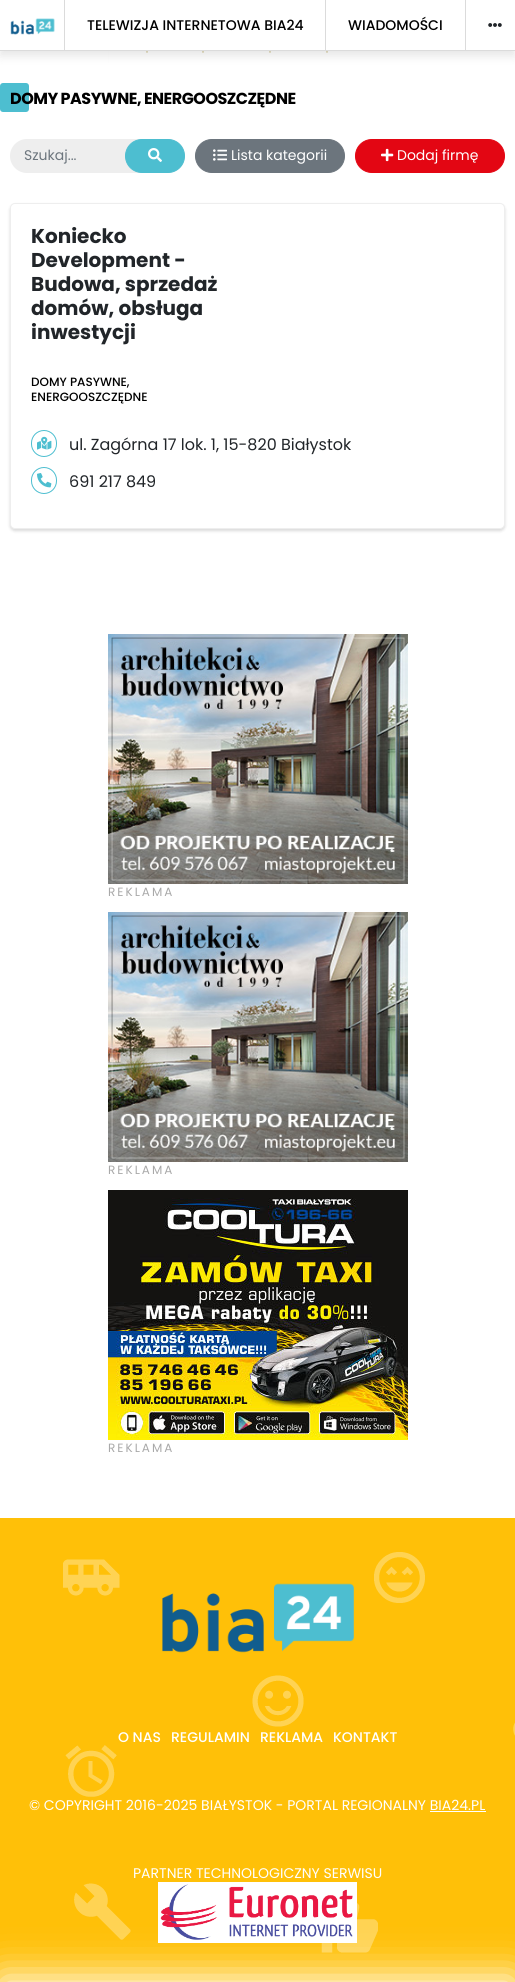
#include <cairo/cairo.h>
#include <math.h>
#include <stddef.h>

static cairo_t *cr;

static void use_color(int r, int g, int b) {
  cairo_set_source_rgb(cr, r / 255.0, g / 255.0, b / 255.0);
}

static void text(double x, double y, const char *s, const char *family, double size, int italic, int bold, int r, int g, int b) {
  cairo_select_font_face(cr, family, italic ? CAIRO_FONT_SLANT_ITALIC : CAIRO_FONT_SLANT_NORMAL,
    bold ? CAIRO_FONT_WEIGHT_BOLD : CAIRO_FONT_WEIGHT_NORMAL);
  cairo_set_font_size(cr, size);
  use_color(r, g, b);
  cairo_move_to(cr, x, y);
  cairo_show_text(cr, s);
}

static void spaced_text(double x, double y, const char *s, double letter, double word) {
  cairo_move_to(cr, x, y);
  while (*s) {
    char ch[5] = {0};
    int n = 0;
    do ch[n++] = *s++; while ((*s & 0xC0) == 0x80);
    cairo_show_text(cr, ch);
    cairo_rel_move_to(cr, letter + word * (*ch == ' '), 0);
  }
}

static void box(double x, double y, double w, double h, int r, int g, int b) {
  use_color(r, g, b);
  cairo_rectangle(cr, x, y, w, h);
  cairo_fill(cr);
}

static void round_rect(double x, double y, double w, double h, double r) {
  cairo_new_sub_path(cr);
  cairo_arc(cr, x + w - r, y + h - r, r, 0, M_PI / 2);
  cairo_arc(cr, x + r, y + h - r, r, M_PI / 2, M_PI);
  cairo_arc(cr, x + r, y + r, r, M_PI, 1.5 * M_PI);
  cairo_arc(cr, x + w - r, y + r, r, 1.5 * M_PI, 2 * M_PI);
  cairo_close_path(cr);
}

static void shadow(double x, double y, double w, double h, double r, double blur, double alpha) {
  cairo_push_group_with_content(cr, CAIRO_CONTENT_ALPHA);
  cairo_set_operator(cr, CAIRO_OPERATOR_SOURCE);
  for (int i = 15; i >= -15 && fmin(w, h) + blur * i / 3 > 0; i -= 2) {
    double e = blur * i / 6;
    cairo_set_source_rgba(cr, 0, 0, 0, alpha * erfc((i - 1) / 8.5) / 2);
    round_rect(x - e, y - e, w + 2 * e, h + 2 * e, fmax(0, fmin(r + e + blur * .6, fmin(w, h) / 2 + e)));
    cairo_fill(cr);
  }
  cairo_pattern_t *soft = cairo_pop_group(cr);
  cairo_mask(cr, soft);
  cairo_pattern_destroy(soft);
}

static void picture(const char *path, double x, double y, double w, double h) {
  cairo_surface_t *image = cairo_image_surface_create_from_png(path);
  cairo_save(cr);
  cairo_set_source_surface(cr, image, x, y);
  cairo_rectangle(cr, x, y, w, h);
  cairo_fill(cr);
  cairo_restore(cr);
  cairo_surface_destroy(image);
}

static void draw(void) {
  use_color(255, 255, 255);
  cairo_paint(cr);
  picture("img_03.png", 108, 51, 300, 12);
  use_color(0, 0, 0);
  shadow(0, 4, 515, 52, 0, 5, 0.1);
  box(0, 0, 515, 50, 255, 255, 255);
  box(0, 50, 515, 1, 219, 219, 219);
  picture("img_01.png", 10, 18, 45, 17);
  box(64, 0, 1, 50, 219, 219, 219);
  box(325, 0, 1, 50, 219, 219, 219);
  box(465, 0, 1, 50, 219, 219, 219);
  picture("img_02.png", 488, 23, 14, 4);
  use_color(77, 190, 208);
  round_rect(1, 84, 27, 27, 2);
  cairo_fill_preserve(cr);
  cairo_stroke(cr);
  use_color(238, 238, 238);
  round_rect(10, 139, 175, 34, 17);
  cairo_fill(cr);
  use_color(77, 190, 208);
  round_rect(125.5, 139.5, 59, 33, 16.5);
  cairo_fill_preserve(cr);
  cairo_set_line_width(cr, 1);
  cairo_stroke(cr);
  picture("img_04.png", 148, 148, 14, 14);
  use_color(108, 117, 125);
  round_rect(195.5, 139.5, 149, 33, 16.5);
  cairo_fill_preserve(cr);
  cairo_stroke(cr);
  picture("img_05.png", 213, 149, 14, 12);
  use_color(227, 6, 19);
  round_rect(355.5, 139.5, 149, 33, 16.5);
  cairo_fill_preserve(cr);
  cairo_stroke(cr);
  picture("img_06.png", 381, 148, 13, 14);
  use_color(0, 0, 0);
  shadow(10, 205, 495, 326, 5, 1.5, 0.15);
  use_color(255, 255, 255);
  round_rect(10.5, 203.5, 494, 325, 4.5);
  cairo_fill_preserve(cr);
  use_color(238, 238, 238);
  cairo_stroke(cr);
  round_rect(31.5, 430.5, 25, 26, 12.5);
  use_color(77, 190, 208);
  cairo_stroke(cr);
  picture("img_07.png", 37, 436, 15, 14);
  round_rect(31.5, 467.5, 25, 26, 12.5);
  cairo_stroke(cr);
  picture("img_08.png", 37, 473, 15, 15);
  picture("img_09.png", 108, 634, 300, 250);
  picture("img_09.png", 108, 912, 300, 250);
  picture("img_10.png", 108, 1190, 300, 250);
  box(0, 1518, 515, 464, 255, 192, 8);
  picture("img_11.png", 63, 1552, 452, 401);
  picture("img_12.png", 162, 1583, 192, 70);
  box(430, 1811, 56, 1, 255, 255, 255);
  picture("img_13.png", 158, 1882, 199, 61);
  use_color(255, 255, 255);
  shadow(0, 1977, 515, 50, 0, 20, 1);
  text(87, 30, "TELEWIZJA INTERNETOWA BIA24", "Poppins Medium", 14, 0, 0, 0, 0, 0);
  text(348, 30, "WIADOMOŚCI", "Poppins Medium", 14, 0, 0, 0, 0, 0);
  cairo_select_font_face(cr, "Poppins", CAIRO_FONT_SLANT_NORMAL, CAIRO_FONT_WEIGHT_BOLD);
  cairo_set_font_size(cr, 16);
  spaced_text(10, 104, "DOMY PASYWNE, ENERGOOSZCZĘDNE", -0.5, 0);
  text(24, 160, "Szukaj...", "Poppins", 14, 0, 0, 108, 117, 125);
  text(231, 160, "Lista kategorii", "Poppins", 14, 0, 0, 255, 255, 255);
  text(397, 160, "Dodaj firmę", "Poppins", 14, 0, 0, 255, 255, 255);
  text(31, 243, "Koniecko", "Poppins", 20, 0, 1, 33, 37, 41);
  text(31, 267, "Development -", "Poppins", 20, 0, 1, 33, 37, 41);
  text(31, 291, "Budowa, sprzedaż", "Poppins", 20, 0, 1, 33, 37, 41);
  text(31, 315, "domów, obsługa", "Poppins", 20, 0, 1, 33, 37, 41);
  text(31, 339, "inwestycji", "Poppins", 20, 0, 1, 33, 37, 41);
  text(31, 386, "DOMY PASYWNE,", "Poppins Medium", 12, 0, 0, 0, 0, 0);
  text(31, 401, "ENERGOOSZCZĘDNE", "Poppins Medium", 12, 0, 0, 0, 0, 0);
  text(69, 450, "ul. Zagórna 17 lok. 1, 15-820 Białystok", "Poppins", 16, 0, 0, 33, 37, 41);
  text(69, 487, "691 217 849", "Poppins", 16, 0, 0, 33, 37, 41);
  cairo_set_font_size(cr, 12);
  use_color(169, 169, 169);
  spaced_text(108, 896, "REKLAMA", 2, 0);
  spaced_text(108, 1174, "REKLAMA", 2, 0);
  spaced_text(108, 1452, "REKLAMA", 2, 0);
  text(118, 1742, "O NAS", "Poppins Medium", 14, 0, 0, 255, 255, 255);
  text(171, 1742, "REGULAMIN", "Poppins Medium", 14, 0, 0, 255, 255, 255);
  text(260, 1742, "REKLAMA", "Poppins Medium", 14, 0, 0, 255, 255, 255);
  text(333, 1742, "KONTAKT", "Poppins Medium", 14, 0, 0, 255, 255, 255);
  text(29, 1810, "© COPYRIGHT 2016-2025 BIAŁYSTOK - PORTAL REGIONALNY BIA24.PL", "Poppins", 14, 0, 0, 255, 255, 255);
  text(133, 1878, "PARTNER TECHNOLOGICZNY SERWISU", "Poppins", 14, 0, 0, 255, 255, 255);
}

int main(void) {
  cairo_surface_t *surface = cairo_image_surface_create(CAIRO_FORMAT_RGB24, 515, 1982);
  cr = cairo_create(surface);
  cairo_font_options_t *options = cairo_font_options_create();
  cairo_font_options_set_hint_metrics(options, CAIRO_HINT_METRICS_OFF);
  cairo_font_options_set_hint_style(options, CAIRO_HINT_STYLE_NONE);
  cairo_set_font_options(cr, options);
  cairo_set_miter_limit(cr, 4);
  draw();
  cairo_surface_write_to_png(surface, "out.png");
  cairo_font_options_destroy(options);
  cairo_destroy(cr);
  cairo_surface_destroy(surface);
  return 0;
}
